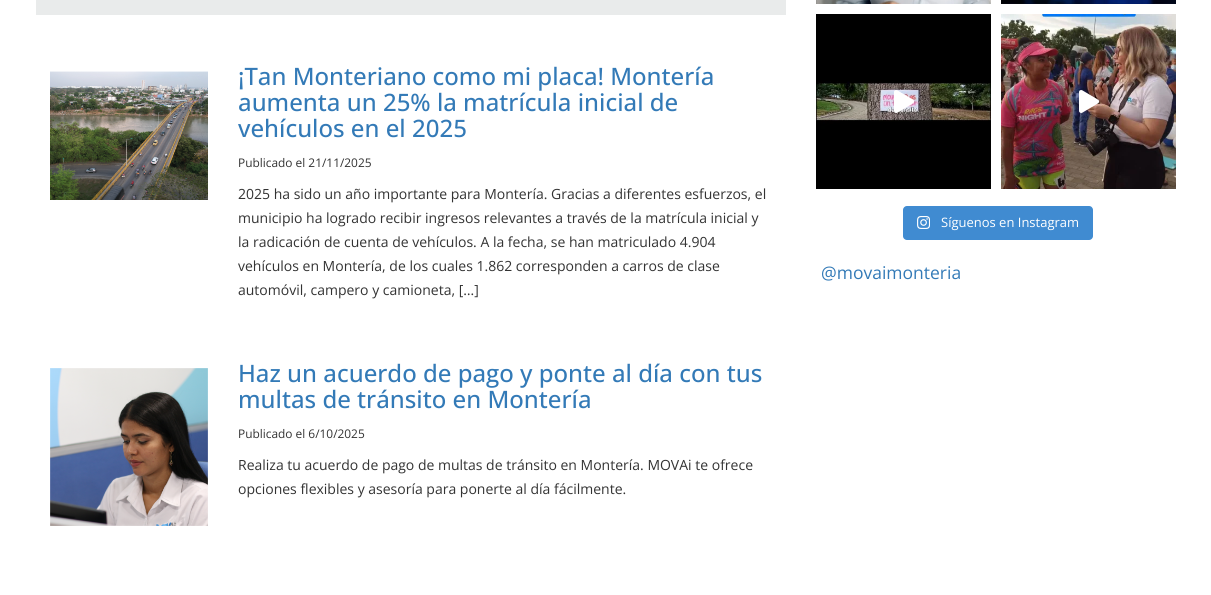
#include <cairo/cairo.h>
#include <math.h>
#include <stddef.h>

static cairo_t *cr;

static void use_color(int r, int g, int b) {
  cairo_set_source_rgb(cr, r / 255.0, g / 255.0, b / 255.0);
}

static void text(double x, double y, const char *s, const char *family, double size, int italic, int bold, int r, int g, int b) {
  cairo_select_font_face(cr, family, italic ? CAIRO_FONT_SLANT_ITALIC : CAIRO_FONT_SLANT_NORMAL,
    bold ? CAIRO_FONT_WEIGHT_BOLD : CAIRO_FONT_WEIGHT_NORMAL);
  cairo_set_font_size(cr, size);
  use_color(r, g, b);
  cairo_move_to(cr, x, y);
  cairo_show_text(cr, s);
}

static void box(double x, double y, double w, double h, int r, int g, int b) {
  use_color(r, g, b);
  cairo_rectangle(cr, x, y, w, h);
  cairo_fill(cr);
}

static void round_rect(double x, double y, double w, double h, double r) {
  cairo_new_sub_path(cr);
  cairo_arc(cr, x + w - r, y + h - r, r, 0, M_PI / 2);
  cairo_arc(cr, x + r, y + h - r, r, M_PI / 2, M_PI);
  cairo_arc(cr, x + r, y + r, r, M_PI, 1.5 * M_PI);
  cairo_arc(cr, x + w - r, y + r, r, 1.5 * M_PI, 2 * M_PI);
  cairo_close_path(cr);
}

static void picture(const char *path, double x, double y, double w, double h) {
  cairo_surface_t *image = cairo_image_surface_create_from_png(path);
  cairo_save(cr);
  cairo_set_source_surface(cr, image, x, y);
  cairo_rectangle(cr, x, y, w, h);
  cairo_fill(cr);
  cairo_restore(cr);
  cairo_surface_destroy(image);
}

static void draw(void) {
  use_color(255, 255, 255);
  cairo_paint(cr);
  box(36, 0, 750, 15, 233, 235, 235);
  picture("img_01.png", 50, 71, 158, 129);
  picture("img_02.png", 50, 368, 158, 158);
  picture("img_03.png", 816, 0, 175, 4);
  picture("img_04.png", 1001, 0, 175, 4);
  picture("img_05.png", 816, 14, 175, 175);
  picture("img_06.png", 894, 90, 20, 23);
  picture("img_07.png", 1001, 14, 175, 175);
  picture("img_08.png", 1079, 90, 20, 23);
  use_color(64, 139, 209);
  round_rect(903, 206, 190, 34, 4);
  cairo_fill(cr);
  picture("img_09.png", 917, 216, 13, 13);
  text(238, 85, "¡Tan Monteriano como mi placa! Montería", "Open Sans Medium", 24, 0, 0, 51, 122, 183);
  text(238, 111, "aumenta un 25% la matrícula inicial de", "Open Sans Medium", 24, 0, 0, 51, 122, 183);
  text(238, 137, "vehículos en el 2025", "Open Sans Medium", 24, 0, 0, 51, 122, 183);
  text(238, 167, "Publicado el 21/11/2025", "Open Sans", 11.9, 0, 0, 51, 51, 51);
  text(238, 199, "2025 ha sido un año importante para Montería. Gracias a diferentes esfuerzos, el", "Open Sans", 14, 0, 0, 51, 51, 51);
  text(238, 223, "municipio ha logrado recibir ingresos relevantes a través de la matrícula inicial y", "Open Sans", 14, 0, 0, 51, 51, 51);
  text(238, 247, "la radicación de cuenta de vehículos. A la fecha, se han matriculado 4.904", "Open Sans", 14, 0, 0, 51, 51, 51);
  text(238, 271, "vehículos en Montería, de los cuales 1.862 corresponden a carros de clase", "Open Sans", 14, 0, 0, 51, 51, 51);
  text(238, 295, "automóvil, campero y camioneta, […]", "Open Sans", 14, 0, 0, 51, 51, 51);
  text(238, 382, "Haz un acuerdo de pago y ponte al día con tus", "Open Sans Medium", 24, 0, 0, 51, 122, 183);
  text(238, 408, "multas de tránsito en Montería", "Open Sans Medium", 24, 0, 0, 51, 122, 183);
  text(238, 438, "Publicado el 6/10/2025", "Open Sans", 11.9, 0, 0, 51, 51, 51);
  text(238, 470, "Realiza tu acuerdo de pago de multas de tránsito en Montería. MOVAi te ofrece", "Open Sans", 14, 0, 0, 51, 51, 51);
  text(238, 494, "opciones flexibles y asesoría para ponerte al día fácilmente.", "Open Sans", 14, 0, 0, 51, 51, 51);
  text(941, 227, "Síguenos en Instagram", "Open Sans", 13, 0, 0, 255, 255, 255);
  text(821, 279, "@movaimonteria", "Open Sans", 17.5, 0, 0, 51, 122, 183);
}

int main(void) {
  cairo_surface_t *surface = cairo_image_surface_create(CAIRO_FORMAT_RGB24, 1211, 595);
  cr = cairo_create(surface);
  cairo_font_options_t *options = cairo_font_options_create();
  cairo_font_options_set_hint_metrics(options, CAIRO_HINT_METRICS_OFF);
  cairo_font_options_set_hint_style(options, CAIRO_HINT_STYLE_NONE);
  cairo_set_font_options(cr, options);
  cairo_set_miter_limit(cr, 4);
  draw();
  cairo_surface_write_to_png(surface, "out.png");
  cairo_font_options_destroy(options);
  cairo_destroy(cr);
  cairo_surface_destroy(surface);
  return 0;
}
